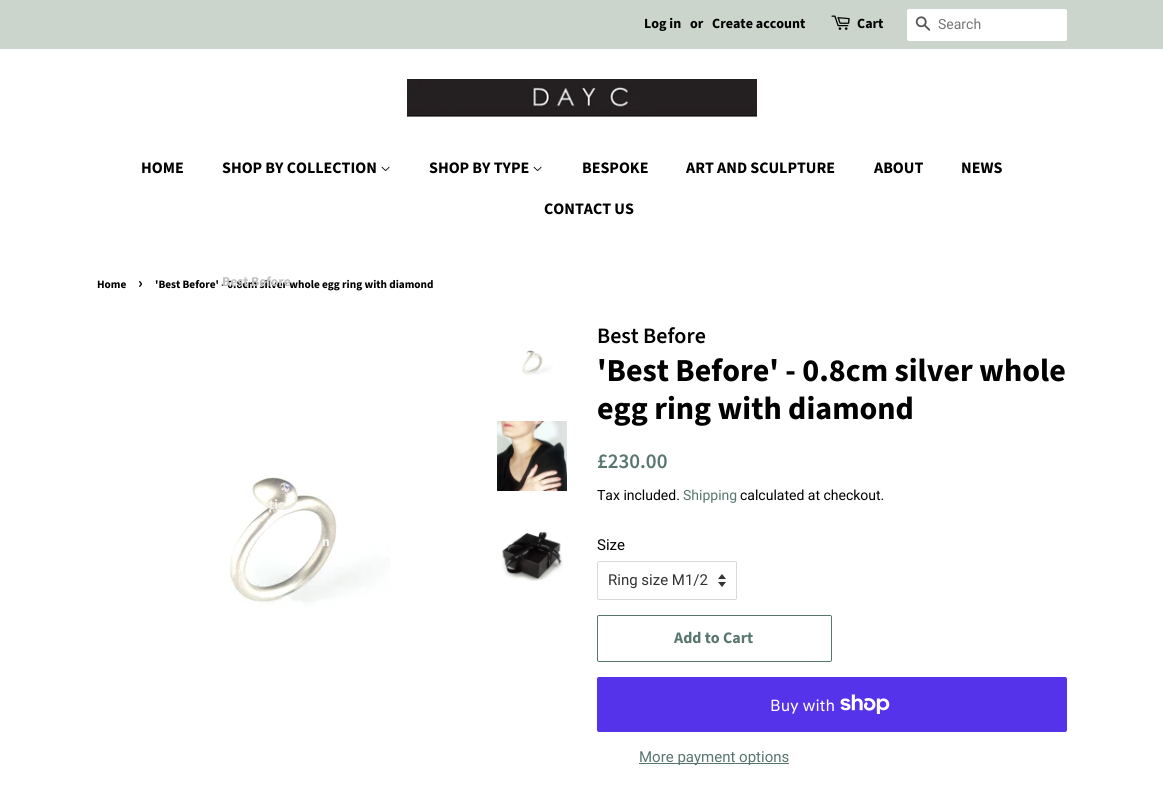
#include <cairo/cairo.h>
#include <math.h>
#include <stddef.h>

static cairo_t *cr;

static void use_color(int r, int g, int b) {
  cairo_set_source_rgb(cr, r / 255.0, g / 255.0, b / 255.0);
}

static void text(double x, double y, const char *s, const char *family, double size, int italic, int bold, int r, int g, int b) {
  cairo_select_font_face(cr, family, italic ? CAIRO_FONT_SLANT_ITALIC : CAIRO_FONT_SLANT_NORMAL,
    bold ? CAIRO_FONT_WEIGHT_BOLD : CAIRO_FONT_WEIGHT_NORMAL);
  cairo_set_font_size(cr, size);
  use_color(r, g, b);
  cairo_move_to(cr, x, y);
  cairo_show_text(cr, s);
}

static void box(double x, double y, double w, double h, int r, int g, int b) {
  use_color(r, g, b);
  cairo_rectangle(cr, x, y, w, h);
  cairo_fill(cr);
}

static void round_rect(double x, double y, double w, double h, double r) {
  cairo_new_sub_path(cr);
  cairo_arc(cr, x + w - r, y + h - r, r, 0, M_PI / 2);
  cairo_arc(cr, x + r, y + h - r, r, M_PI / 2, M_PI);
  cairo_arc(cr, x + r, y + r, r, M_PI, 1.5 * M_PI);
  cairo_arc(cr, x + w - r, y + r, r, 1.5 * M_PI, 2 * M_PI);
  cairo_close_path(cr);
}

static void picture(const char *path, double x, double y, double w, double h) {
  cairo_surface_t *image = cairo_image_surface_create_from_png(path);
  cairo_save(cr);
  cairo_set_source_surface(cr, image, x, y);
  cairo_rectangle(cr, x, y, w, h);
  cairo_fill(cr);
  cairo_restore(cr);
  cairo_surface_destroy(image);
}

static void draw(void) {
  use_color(255, 255, 255);
  cairo_paint(cr);
  box(0, 0, 1163, 49, 203, 213, 204);
  picture("img_01.png", 831, 15, 19, 15);
  use_color(255, 255, 255);
  round_rect(907, 9, 160, 32, 2);
  cairo_fill(cr);
  picture("img_02.png", 915, 16, 16, 15);
  picture("img_03.png", 407, 79, 350, 38);
  picture("img_04.png", 381, 166, 9, 6);
  picture("img_04.png", 533, 166, 9, 6);
  picture("img_05.png", 230, 477, 161, 130);
  picture("img_06.png", 522, 350, 31, 25);
  picture("img_07.png", 497, 421, 70, 70);
  picture("img_08.png", 502, 532, 61, 50);
  picture("img_09.png", 718, 574, 8, 13);
  round_rect(597.5, 561.5, 139, 38, 1.5);
  use_color(217, 217, 217);
  cairo_set_line_width(cr, 1);
  cairo_stroke(cr);
  round_rect(597.5, 615.5, 234, 46, 1.5);
  use_color(89, 117, 111);
  cairo_stroke(cr);
  use_color(84, 51, 235);
  round_rect(597, 677, 470, 55, 2);
  cairo_fill(cr);
  picture("img_10.png", 840, 694, 50, 20);
  box(639, 763, 150, 1, 89, 117, 111);
  text(644, 28, "Log in", "Source Sans Pro", 14, 0, 1, 0, 0, 0);
  text(690, 28, "or", "Source Sans Pro", 14, 0, 1, 0, 0, 0);
  text(712, 28, "Create account", "Source Sans Pro", 14, 0, 1, 0, 0, 0);
  text(857, 28, "Cart", "Source Sans Pro", 14, 0, 1, 0, 0, 0);
  text(938, 29, "Search", "Roboto", 14, 0, 0, 117, 117, 117);
  text(141, 173, "HOME", "Source Sans Pro", 16, 0, 1, 0, 0, 0);
  text(222, 173, "SHOP BY COLLECTION", "Source Sans Pro", 16, 0, 1, 0, 0, 0);
  text(269, 509, "tio", "Source Sans Pro", 13.5, 0, 1, 245, 243, 238);
  text(322, 546, "n", "Source Sans Pro", 13.5, 0, 1, 248, 248, 246);
  text(429, 173, "SHOP BY TYPE", "Source Sans Pro", 16, 0, 1, 0, 0, 0);
  text(582, 173, "BESPOKE", "Source Sans Pro", 16, 0, 1, 0, 0, 0);
  text(686, 173, "ART AND SCULPTURE", "Source Sans Pro", 16, 0, 1, 0, 0, 0);
  text(874, 173, "ABOUT", "Source Sans Pro", 16, 0, 1, 0, 0, 0);
  text(961, 173, "NEWS", "Source Sans Pro", 16, 0, 1, 0, 0, 0);
  text(544, 214, "CONTACT US", "Source Sans Pro", 16, 0, 1, 0, 0, 0);
  text(97, 288, "Home", "Source Sans Pro", 11.25, 0, 1, 0, 0, 0);
  text(138, 288, "›", "Source Sans Pro", 16, 0, 1, 0, 0, 0);
  text(155, 288, "'Best Before' - 0.8cm silver whole egg ring with diamond", "Source Sans Pro", 11.25, 0, 1, 0, 0, 0);
  text(222, 286, "Best Before", "Source Sans Pro", 13.5, 0, 1, 194, 194, 194);
  text(597, 343, "Best Before", "Source Sans Pro SemiBold", 22, 0, 0, 0, 0, 0);
  text(597, 381, "'Best Before' - 0.8cm silver whole", "Source Sans Pro", 32, 0, 1, 0, 0, 0);
  text(597, 419, "egg ring with diamond", "Source Sans Pro", 32, 0, 1, 0, 0, 0);
  text(597, 468, "£230.00", "Source Sans Pro SemiBold", 21, 0, 0, 89, 117, 111);
  text(597, 500, "Tax included.", "Roboto", 14, 0, 0, 0, 0, 0);
  text(683, 500, "Shipping", "Roboto", 14, 0, 0, 89, 117, 111);
  text(740, 500, "calculated at checkout.", "Roboto", 14, 0, 0, 0, 0, 0);
  text(597, 550, "Size", "Roboto", 15, 0, 0, 0, 0, 0);
  text(608, 585, "Ring size M1/2", "Roboto", 15, 0, 0, 51, 51, 51);
  text(674, 643, "Add to Cart", "Source Sans Pro", 16, 0, 1, 89, 117, 111);
  text(770, 711, "Buy with", "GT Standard", 16, 0, 0, 255, 255, 255);
  text(639, 762, "More payment options", "Roboto", 15, 0, 0, 89, 117, 111);
}

int main(void) {
  cairo_surface_t *surface = cairo_image_surface_create(CAIRO_FORMAT_RGB24, 1163, 792);
  cr = cairo_create(surface);
  cairo_font_options_t *options = cairo_font_options_create();
  cairo_font_options_set_hint_metrics(options, CAIRO_HINT_METRICS_OFF);
  cairo_font_options_set_hint_style(options, CAIRO_HINT_STYLE_NONE);
  cairo_set_font_options(cr, options);
  cairo_set_miter_limit(cr, 4);
  draw();
  cairo_surface_write_to_png(surface, "out.png");
  cairo_font_options_destroy(options);
  cairo_destroy(cr);
  cairo_surface_destroy(surface);
  return 0;
}
